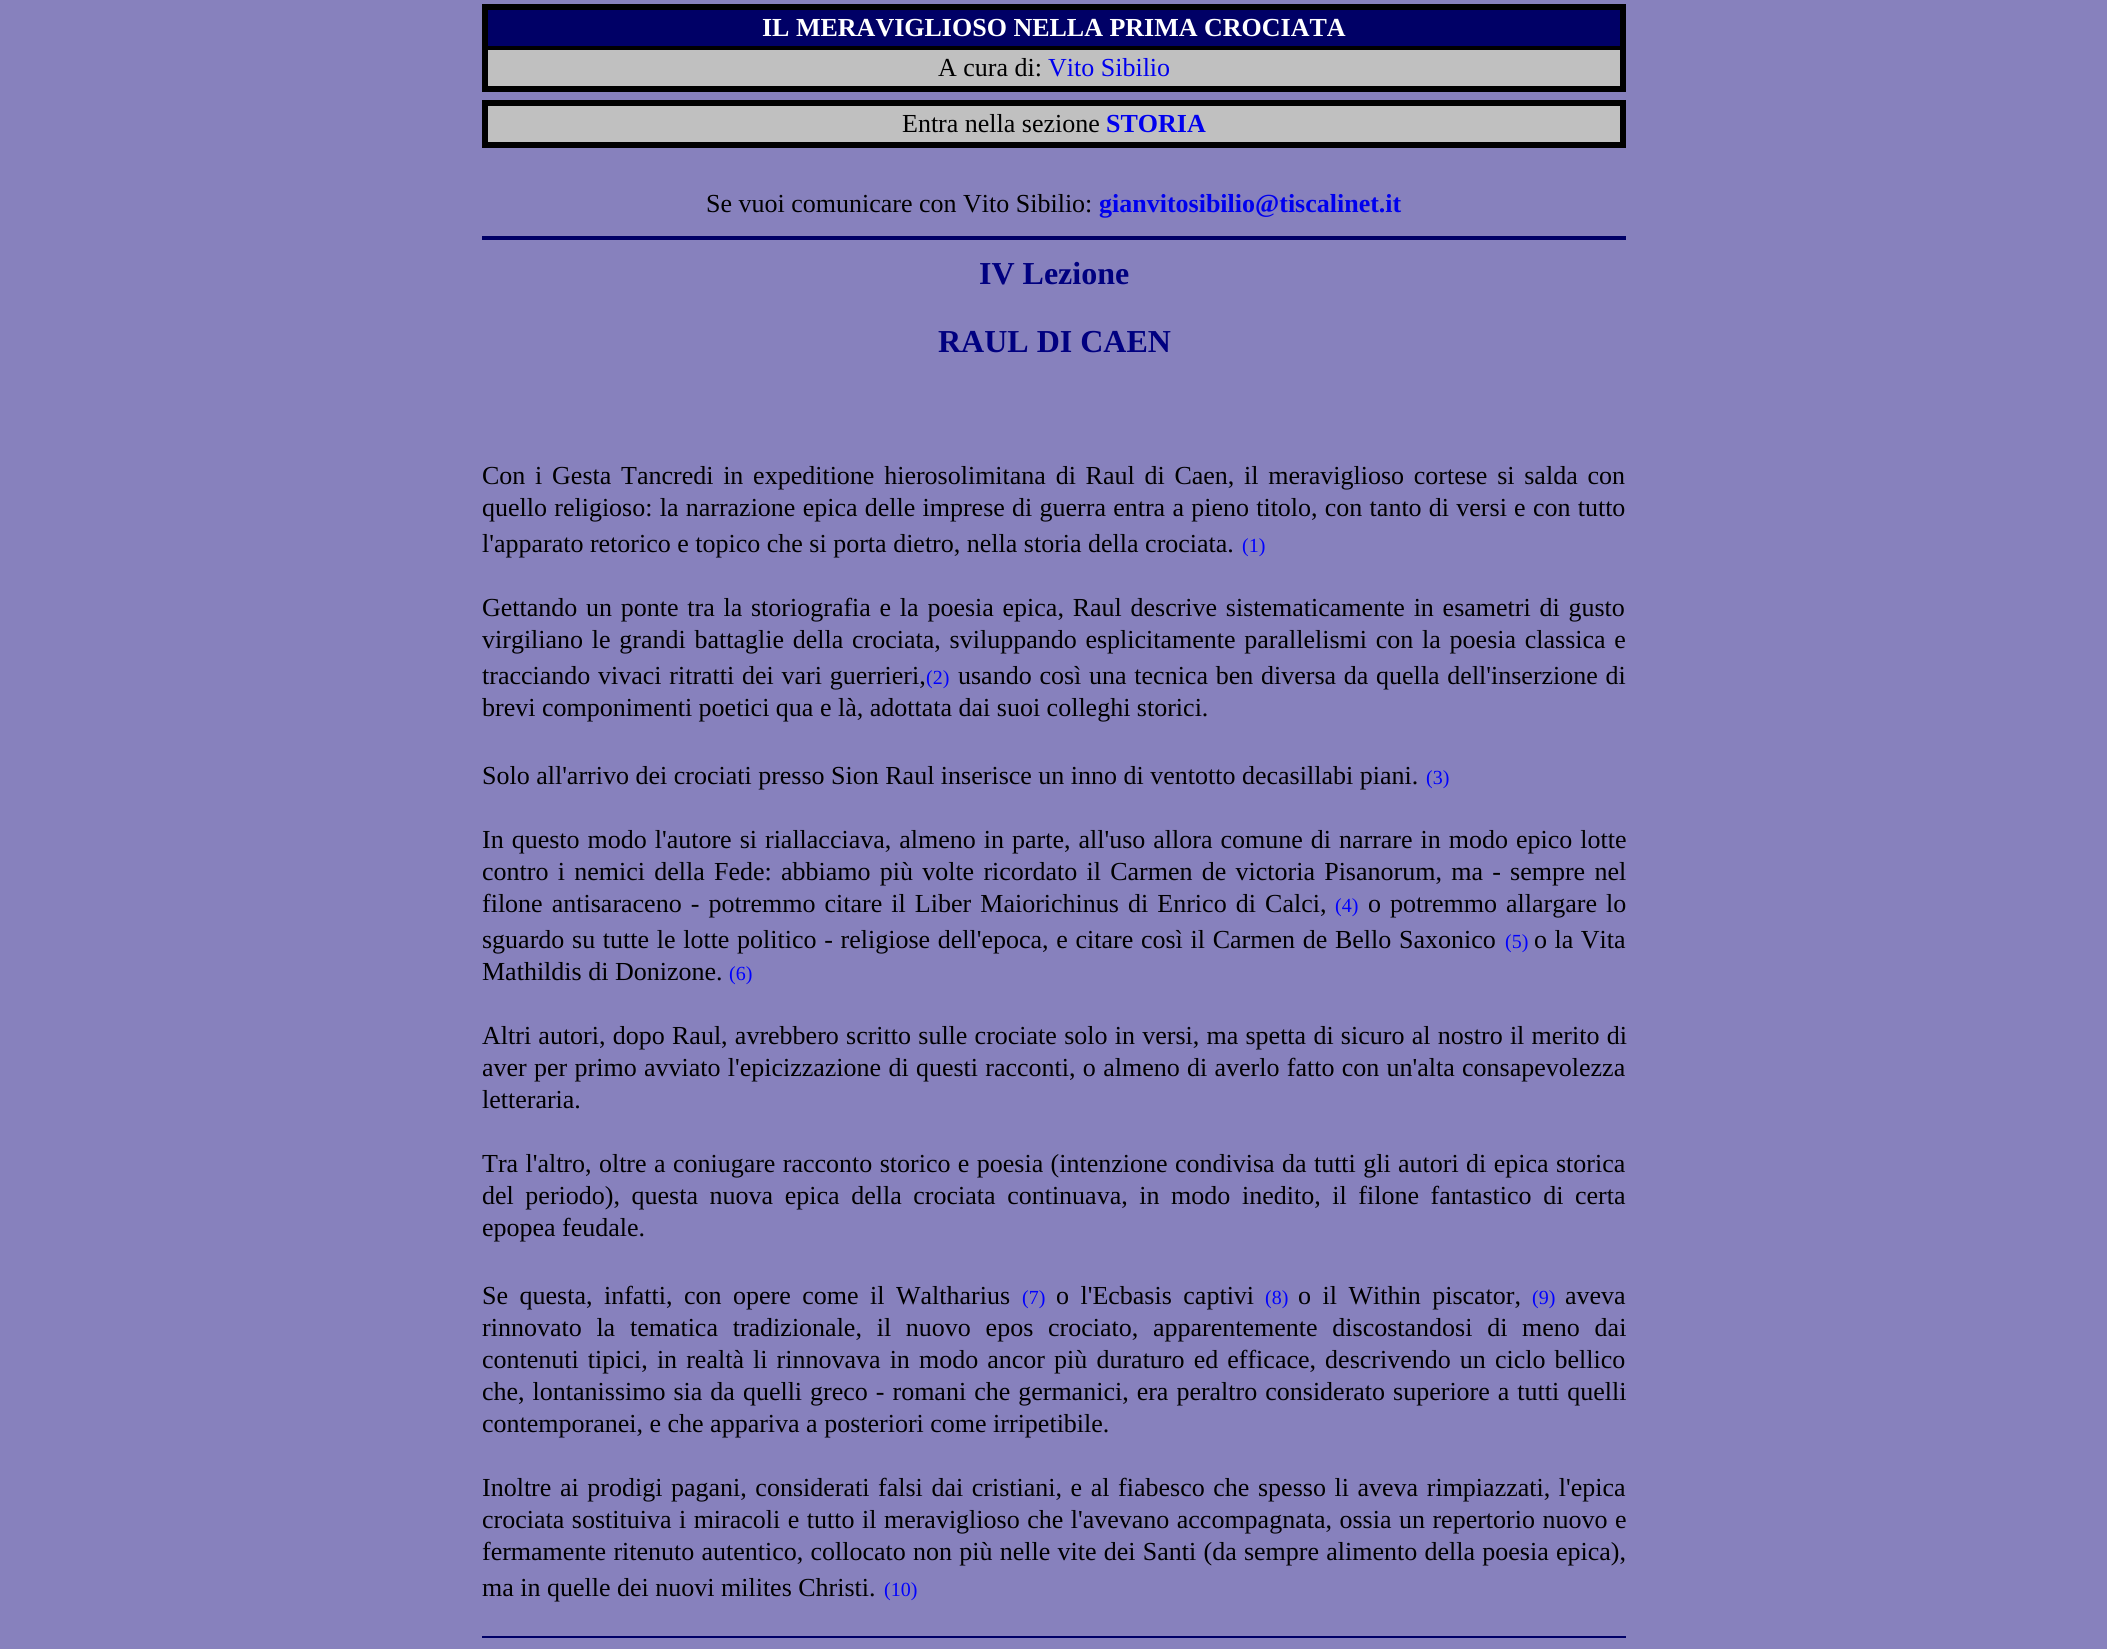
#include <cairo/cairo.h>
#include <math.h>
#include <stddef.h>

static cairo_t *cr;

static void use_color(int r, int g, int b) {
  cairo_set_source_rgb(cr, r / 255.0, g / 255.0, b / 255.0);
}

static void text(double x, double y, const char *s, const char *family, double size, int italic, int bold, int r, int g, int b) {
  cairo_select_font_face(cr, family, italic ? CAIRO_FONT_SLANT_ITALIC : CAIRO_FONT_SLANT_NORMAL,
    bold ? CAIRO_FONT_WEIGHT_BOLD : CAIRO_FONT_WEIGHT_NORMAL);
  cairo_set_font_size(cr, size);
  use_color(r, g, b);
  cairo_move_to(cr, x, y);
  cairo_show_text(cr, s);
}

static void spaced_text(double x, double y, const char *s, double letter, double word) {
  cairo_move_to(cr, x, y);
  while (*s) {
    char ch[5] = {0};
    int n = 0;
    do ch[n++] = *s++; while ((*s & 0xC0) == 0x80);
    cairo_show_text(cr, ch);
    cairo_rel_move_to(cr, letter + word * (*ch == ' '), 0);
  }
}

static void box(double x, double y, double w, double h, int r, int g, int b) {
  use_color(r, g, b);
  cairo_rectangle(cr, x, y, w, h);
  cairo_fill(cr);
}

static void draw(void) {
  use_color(135, 129, 189);
  cairo_paint(cr);
  box(482, 4, 1144, 88, 0, 0, 0);
  box(488, 10, 1132, 36, 0, 0, 102);
  box(488, 50, 1132, 36, 192, 192, 192);
  box(482, 100, 1144, 48, 0, 0, 0);
  box(488, 106, 1132, 36, 192, 192, 192);
  box(482, 236, 1144, 4, 0, 0, 102);
  box(482, 1636, 1144, 2, 0, 0, 102);
  text(762, 36, "IL MERAVIGLIOSO NELLA PRIMA CROCIATA", "Liberation Serif", 26, 0, 1, 255, 255, 255);
  text(938, 76, "A cura di:", "Liberation Serif", 26, 0, 0, 0, 0, 0);
  text(1048, 76, "Vito Sibilio", "Liberation Serif", 26, 0, 0, 0, 0, 238);
  text(902, 132, "Entra nella sezione", "Liberation Serif", 26, 0, 0, 0, 0, 0);
  text(1106, 132, "STORIA", "Liberation Serif", 26, 0, 1, 0, 0, 238);
  text(706, 212, "Se vuoi comunicare con Vito Sibilio:", "Liberation Serif", 26, 0, 0, 0, 0, 0);
  text(1099, 212, "gianvitosibilio@tiscalinet.it", "Liberation Serif", 26, 0, 1, 0, 0, 238);
  text(979, 284, "IV Lezione", "Liberation Serif", 32, 0, 1, 0, 0, 128);
  text(938, 352, "RAUL DI CAEN", "Liberation Serif", 32, 0, 1, 0, 0, 128);
  cairo_select_font_face(cr, "Liberation Serif", CAIRO_FONT_SLANT_NORMAL, CAIRO_FONT_WEIGHT_NORMAL);
  cairo_set_font_size(cr, 26);
  use_color(0, 0, 0);
  spaced_text(482, 484, "Con i Gesta Tancredi in expeditione hierosolimitana di Raul di Caen, il meraviglioso cortese si salda con", 0, 3.25);
  spaced_text(482, 516, "quello religioso: la narrazione epica delle imprese di guerra entra a pieno titolo, con tanto di versi e con tutto", 0, 0.75);
  text(482, 552, "l'apparato retorico e topico che si porta dietro, nella storia della crociata.", "Liberation Serif", 26, 0, 0, 0, 0, 0);
  text(1242, 552, "(1)", "Liberation Serif", 20, 0, 0, 0, 0, 255);
  cairo_set_font_size(cr, 26);
  use_color(0, 0, 0);
  spaced_text(482, 616, "Gettando un ponte tra la storiografia e la poesia epica, Raul descrive sistematicamente in esametri di gusto", 0, 2.25);
  spaced_text(482, 648, "virgiliano le grandi battaglie della crociata, sviluppando esplicitamente parallelismi con la poesia classica e", 0, 2.25);
  spaced_text(482, 684, "tracciando vivaci ritratti dei vari guerrieri,", 0, 1.25);
  text(926, 684, "(2)", "Liberation Serif", 20, 0, 0, 0, 0, 255);
  cairo_set_font_size(cr, 26);
  use_color(0, 0, 0);
  spaced_text(958, 684, "usando così una tecnica ben diversa da quella dell'inserzione di", 0, 1.25);
  text(482, 716, "brevi componimenti poetici qua e là, adottata dai suoi colleghi storici.", "Liberation Serif", 26, 0, 0, 0, 0, 0);
  text(482, 784, "Solo all'arrivo dei crociati presso Sion Raul inserisce un inno di ventotto decasillabi piani.", "Liberation Serif", 26, 0, 0, 0, 0, 0);
  text(1426, 784, "(3)", "Liberation Serif", 20, 0, 0, 0, 0, 255);
  cairo_set_font_size(cr, 26);
  use_color(0, 0, 0);
  spaced_text(482, 848, "In questo modo l'autore si riallacciava, almeno in parte, all'uso allora comune di narrare in modo epico lotte", 0, 1.5);
  spaced_text(482, 880, "contro i nemici della Fede: abbiamo più volte ricordato il Carmen de victoria Pisanorum, ma - sempre nel", 0, 2.75);
  spaced_text(482, 912, "filone antisaraceno - potremmo citare il Liber Maiorichinus di Enrico di Calci,", 0, 2.6);
  text(1335, 912, "(4)", "Liberation Serif", 20, 0, 0, 0, 0, 255);
  cairo_set_font_size(cr, 26);
  use_color(0, 0, 0);
  spaced_text(1368, 912, "o potremmo allargare lo", 0, 2.6);
  spaced_text(482, 948, "sguardo su tutte le lotte politico - religiose dell'epoca, e citare così il Carmen de Bello Saxonico", 0, 1.2);
  text(1505, 948, "(5)", "Liberation Serif", 20, 0, 0, 0, 0, 255);
  cairo_set_font_size(cr, 26);
  use_color(0, 0, 0);
  spaced_text(1534, 948, "o la Vita", 0, 1);
  text(482, 980, "Mathildis di Donizone.", "Liberation Serif", 26, 0, 0, 0, 0, 0);
  text(729, 980, "(6)", "Liberation Serif", 20, 0, 0, 0, 0, 255);
  cairo_set_font_size(cr, 26);
  use_color(0, 0, 0);
  spaced_text(482, 1044, "Altri autori, dopo Raul, avrebbero scritto sulle crociate solo in versi, ma spetta di sicuro al nostro il merito di", 0, 0.75);
  spaced_text(482, 1076, "aver per primo avviato l'epicizzazione di questi racconti, o almeno di averlo fatto con un'alta consapevolezza", 0, 0.8);
  text(482, 1108, "letteraria.", "Liberation Serif", 26, 0, 0, 0, 0, 0);
  spaced_text(482, 1172, "Tra l'altro, oltre a coniugare racconto storico e poesia (intenzione condivisa da tutti gli autori di epica storica", 0, 0.9);
  spaced_text(482, 1204, "del periodo), questa nuova epica della crociata continuava, in modo inedito, il filone fantastico di certa", 0, 5.1);
  text(482, 1236, "epopea feudale.", "Liberation Serif", 26, 0, 0, 0, 0, 0);
  spaced_text(482, 1304, "Se questa, infatti, con opere come il Waltharius", 0, 5);
  text(1022, 1304, "(7)", "Liberation Serif", 20, 0, 0, 0, 0, 255);
  cairo_set_font_size(cr, 26);
  use_color(0, 0, 0);
  spaced_text(1056, 1304, "o l'Ecbasis captivi", 0, 5);
  text(1265, 1304, "(8)", "Liberation Serif", 20, 0, 0, 0, 0, 255);
  cairo_set_font_size(cr, 26);
  use_color(0, 0, 0);
  spaced_text(1298, 1304, "o il Within piscator,", 0, 5);
  text(1532, 1304, "(9)", "Liberation Serif", 20, 0, 0, 0, 0, 255);
  text(1565, 1304, "aveva", "Liberation Serif", 26, 0, 0, 0, 0, 0);
  spaced_text(482, 1336, "rinnovato la tematica tradizionale, il nuovo epos crociato, apparentemente discostandosi di meno dai", 0, 8.25);
  spaced_text(482, 1368, "contenuti tipici, in realtà li rinnovava in modo ancor più duraturo ed efficace, descrivendo un ciclo bellico", 0, 2.6);
  spaced_text(482, 1400, "che, lontanissimo sia da quelli greco - romani che germanici, era peraltro considerato superiore a tutti quelli", 0, 1.5);
  text(482, 1432, "contemporanei, e che appariva a posteriori come irripetibile.", "Liberation Serif", 26, 0, 0, 0, 0, 0);
  spaced_text(482, 1496, "Inoltre ai prodigi pagani, considerati falsi dai cristiani, e al fiabesco che spesso li aveva rimpiazzati, l'epica", 0, 2.1);
  spaced_text(482, 1528, "crociata sostituiva i miracoli e tutto il meraviglioso che l'avevano accompagnata, ossia un repertorio nuovo e", 0, 1);
  spaced_text(482, 1560, "fermamente ritenuto autentico, collocato non più nelle vite dei Santi (da sempre alimento della poesia epica),", 0, 0.75);
  text(482, 1596, "ma in quelle dei nuovi milites Christi.", "Liberation Serif", 26, 0, 0, 0, 0, 0);
  text(884, 1596, "(10)", "Liberation Serif", 20, 0, 0, 0, 0, 255);
}

int main(void) {
  cairo_surface_t *surface = cairo_image_surface_create(CAIRO_FORMAT_RGB24, 2107, 1649);
  cr = cairo_create(surface);
  cairo_font_options_t *options = cairo_font_options_create();
  cairo_font_options_set_hint_metrics(options, CAIRO_HINT_METRICS_OFF);
  cairo_font_options_set_hint_style(options, CAIRO_HINT_STYLE_NONE);
  cairo_set_font_options(cr, options);
  cairo_set_miter_limit(cr, 4);
  draw();
  cairo_surface_write_to_png(surface, "out.png");
  cairo_font_options_destroy(options);
  cairo_destroy(cr);
  cairo_surface_destroy(surface);
  return 0;
}
